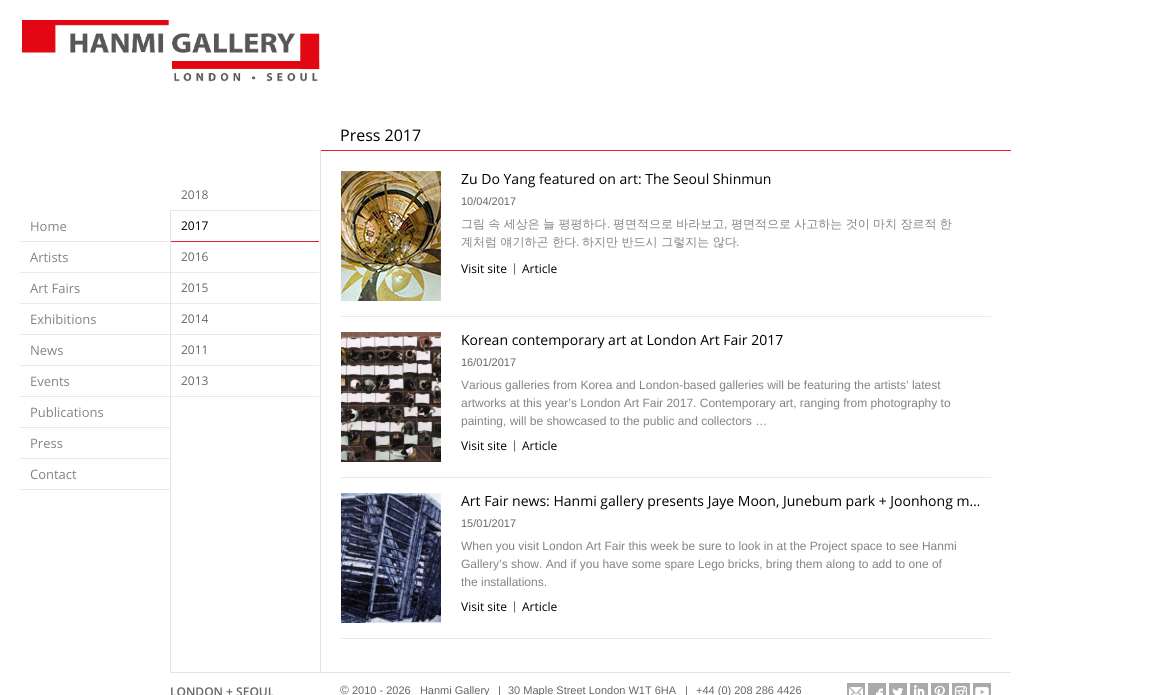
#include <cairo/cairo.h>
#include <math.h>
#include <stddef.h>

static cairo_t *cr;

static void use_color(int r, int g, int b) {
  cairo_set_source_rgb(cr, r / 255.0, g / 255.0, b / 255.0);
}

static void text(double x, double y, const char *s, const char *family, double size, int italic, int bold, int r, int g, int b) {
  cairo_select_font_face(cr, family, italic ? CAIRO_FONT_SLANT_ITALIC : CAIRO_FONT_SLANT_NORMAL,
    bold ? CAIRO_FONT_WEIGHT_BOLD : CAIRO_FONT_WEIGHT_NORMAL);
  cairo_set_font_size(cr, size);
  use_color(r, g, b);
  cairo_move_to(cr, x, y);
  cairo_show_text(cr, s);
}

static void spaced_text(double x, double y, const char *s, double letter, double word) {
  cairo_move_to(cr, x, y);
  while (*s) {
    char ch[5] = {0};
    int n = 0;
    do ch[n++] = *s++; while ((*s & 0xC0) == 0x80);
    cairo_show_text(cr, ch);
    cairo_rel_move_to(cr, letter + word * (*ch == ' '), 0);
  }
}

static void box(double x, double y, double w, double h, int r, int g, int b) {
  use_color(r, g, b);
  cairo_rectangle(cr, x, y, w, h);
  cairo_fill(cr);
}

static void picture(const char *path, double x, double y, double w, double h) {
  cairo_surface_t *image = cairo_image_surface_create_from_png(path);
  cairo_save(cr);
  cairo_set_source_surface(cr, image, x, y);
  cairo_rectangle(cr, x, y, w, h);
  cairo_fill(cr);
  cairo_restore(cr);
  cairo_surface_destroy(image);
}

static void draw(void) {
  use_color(255, 255, 255);
  cairo_paint(cr);
  picture("img_01.png", 22, 20, 298, 62);
  box(170, 210, 1, 462, 227, 227, 227);
  box(20, 241, 150, 1, 233, 233, 233);
  box(20, 272, 150, 1, 233, 233, 233);
  box(20, 303, 150, 1, 233, 233, 233);
  box(20, 334, 150, 1, 233, 233, 233);
  box(20, 365, 150, 1, 233, 233, 233);
  box(20, 396, 150, 1, 233, 233, 233);
  box(20, 427, 150, 1, 233, 233, 233);
  box(20, 458, 150, 1, 233, 233, 233);
  box(20, 489, 150, 1, 233, 233, 233);
  box(171, 210, 148, 1, 233, 233, 233);
  box(171, 241, 148, 1, 237, 27, 36);
  box(171, 272, 148, 1, 233, 233, 233);
  box(171, 303, 148, 1, 233, 233, 233);
  box(171, 334, 148, 1, 233, 233, 233);
  box(171, 365, 148, 1, 233, 233, 233);
  box(171, 396, 148, 1, 233, 233, 233);
  box(320, 150, 691, 1, 237, 27, 36);
  box(320, 150, 1, 522, 227, 227, 227);
  box(341, 316, 650, 1, 233, 233, 233);
  picture("img_02.png", 341, 171, 100, 130);
  box(341, 477, 650, 1, 233, 233, 233);
  picture("img_03.png", 341, 332, 100, 130);
  box(341, 638, 650, 1, 233, 233, 233);
  picture("img_04.png", 341, 493, 100, 130);
  box(170, 672, 841, 1, 227, 227, 227);
  box(847, 683, 18, 12, 170, 170, 170);
  picture("img_05.png", 849, 687, 14, 8);
  box(868, 683, 18, 12, 170, 170, 170);
  picture("img_06.png", 876, 688, 7, 7);
  box(889, 683, 18, 12, 170, 170, 170);
  picture("img_07.png", 892, 688, 12, 7);
  box(910, 683, 18, 12, 170, 170, 170);
  picture("img_08.png", 914, 685, 11, 10);
  box(931, 683, 18, 12, 170, 170, 170);
  picture("img_09.png", 934, 686, 11, 9);
  box(952, 683, 18, 12, 170, 170, 170);
  picture("img_10.png", 955, 686, 12, 9);
  box(973, 683, 18, 12, 170, 170, 170);
  picture("img_11.png", 975, 687, 14, 8);
  text(30, 231, "Home", "Open Sans", 13, 0, 0, 130, 131, 134);
  text(30, 262, "Artists", "Open Sans", 13, 0, 0, 130, 131, 134);
  text(30, 293, "Art Fairs", "Open Sans", 13, 0, 0, 130, 131, 134);
  text(30, 324, "Exhibitions", "Open Sans", 13, 0, 0, 130, 131, 134);
  text(30, 355, "News", "Open Sans", 13, 0, 0, 130, 131, 134);
  text(30, 386, "Events", "Open Sans", 13, 0, 0, 130, 131, 134);
  text(30, 417, "Publications", "Open Sans", 13, 0, 0, 130, 131, 134);
  text(30, 448, "Press", "Open Sans", 13, 0, 0, 130, 131, 134);
  text(30, 479, "Contact", "Open Sans", 13, 0, 0, 130, 131, 134);
  text(181, 199, "2018", "Open Sans", 12, 0, 0, 102, 102, 102);
  text(181, 230, "2017", "Open Sans", 12, 0, 0, 0, 0, 0);
  text(181, 261, "2016", "Open Sans", 12, 0, 0, 102, 102, 102);
  text(181, 292, "2015", "Open Sans", 12, 0, 0, 102, 102, 102);
  text(181, 323, "2014", "Open Sans", 12, 0, 0, 102, 102, 102);
  text(181, 354, "2011", "Open Sans", 12, 0, 0, 102, 102, 102);
  text(181, 385, "2013", "Open Sans", 12, 0, 0, 102, 102, 102);
  text(340, 141, "Press 2017", "Open Sans", 16, 0, 0, 0, 0, 0);
  text(461, 184, "Zu Do Yang featured on art: The Seoul Shinmun", "Open Sans", 14, 0, 0, 0, 0, 0);
  text(461, 205, "10/04/2017", "Liberation Sans", 11, 0, 0, 102, 102, 102);
  cairo_select_font_face(cr, "WenQuanYi Zen Hei Medium", CAIRO_FONT_SLANT_NORMAL, CAIRO_FONT_WEIGHT_NORMAL);
  cairo_set_font_size(cr, 12);
  use_color(130, 131, 134);
  spaced_text(461, 228, "그림 속 세상은 늘 평평하다", 0, -0.25);
  text(607, 228, ".", "Liberation Sans", 12, 0, 0, 130, 131, 134);
  cairo_select_font_face(cr, "WenQuanYi Zen Hei Medium", CAIRO_FONT_SLANT_NORMAL, CAIRO_FONT_WEIGHT_NORMAL);
  spaced_text(613, 228, "평면적으로 바라보고", 0, -0.25);
  text(724, 228, ",", "Liberation Sans", 12, 0, 0, 130, 131, 134);
  cairo_select_font_face(cr, "WenQuanYi Zen Hei Medium", CAIRO_FONT_SLANT_NORMAL, CAIRO_FONT_WEIGHT_NORMAL);
  spaced_text(731, 228, "평면적으로 사고하는 것이 마치 장르적 한", 0, -0.25);
  text(461, 246, "계처럼 얘기하곤 한다", "WenQuanYi Zen Hei Medium", 12, 0, 0, 130, 131, 134);
  text(576, 246, ".", "Liberation Sans", 12, 0, 0, 130, 131, 134);
  text(582, 246, "하지만 반드시 그렇지는 않다", "WenQuanYi Zen Hei Medium", 12, 0, 0, 130, 131, 134);
  text(736, 246, ".", "Liberation Sans", 12, 0, 0, 130, 131, 134);
  text(461, 273, "Visit site", "Open Sans", 12, 0, 0, 0, 0, 0);
  text(513, 272, "|", "Liberation Sans", 12, 0, 0, 102, 102, 102);
  text(522, 273, "Article", "Open Sans", 12, 0, 0, 0, 0, 0);
  text(461, 345, "Korean contemporary art at London Art Fair 2017", "Open Sans", 14, 0, 0, 0, 0, 0);
  text(461, 366, "16/01/2017", "Liberation Sans", 11, 0, 0, 102, 102, 102);
  text(461, 389, "Various galleries from Korea and London-based galleries will be featuring the artists’ latest", "Liberation Sans", 12, 0, 0, 130, 131, 134);
  text(461, 407, "artworks at this year’s London Art Fair 2017. Contemporary art, ranging from photography to", "Liberation Sans", 12, 0, 0, 130, 131, 134);
  text(461, 425, "painting, will be showcased to the public and collectors …", "Liberation Sans", 12, 0, 0, 130, 131, 134);
  text(461, 450, "Visit site", "Open Sans", 12, 0, 0, 0, 0, 0);
  text(513, 449, "|", "Liberation Sans", 12, 0, 0, 102, 102, 102);
  text(522, 450, "Article", "Open Sans", 12, 0, 0, 0, 0, 0);
  text(461, 506, "Art Fair news: Hanmi gallery presents Jaye Moon, Junebum park + Joonhong m…", "Open Sans", 14, 0, 0, 0, 0, 0);
  text(461, 527, "15/01/2017", "Liberation Sans", 11, 0, 0, 102, 102, 102);
  text(461, 550, "When you visit London Art Fair this week be sure to look in at the Project space to see Hanmi", "Liberation Sans", 12, 0, 0, 130, 131, 134);
  text(461, 568, "Gallery’s show. And if you have some spare Lego bricks, bring them along to add to one of", "Liberation Sans", 12, 0, 0, 130, 131, 134);
  text(461, 586, "the installations.", "Liberation Sans", 12, 0, 0, 130, 131, 134);
  text(461, 611, "Visit site", "Open Sans", 12, 0, 0, 0, 0, 0);
  text(513, 610, "|", "Liberation Sans", 12, 0, 0, 102, 102, 102);
  text(522, 611, "Article", "Open Sans", 12, 0, 0, 0, 0, 0);
  text(170, 696, "LONDON + SEOUL", "Open Sans SemiBold", 12, 0, 0, 102, 102, 102);
  text(340, 694, "©", "Liberation Sans", 12, 0, 0, 102, 102, 102);
  text(352, 694, "2010 - 2026   Hanmi Gallery", "Liberation Sans", 11, 0, 0, 102, 102, 102);
  text(498, 694, "|", "Liberation Sans", 11, 0, 0, 102, 102, 102);
  text(508, 694, "30 Maple Street London W1T 6HA", "Liberation Sans", 11, 0, 0, 102, 102, 102);
  text(685, 694, "|", "Liberation Sans", 11, 0, 0, 102, 102, 102);
  text(696, 694, "+44 (0) 208 286 4426", "Liberation Sans", 11, 0, 0, 102, 102, 102);
}

int main(void) {
  cairo_surface_t *surface = cairo_image_surface_create(CAIRO_FORMAT_RGB24, 1149, 695);
  cr = cairo_create(surface);
  cairo_font_options_t *options = cairo_font_options_create();
  cairo_font_options_set_hint_metrics(options, CAIRO_HINT_METRICS_OFF);
  cairo_font_options_set_hint_style(options, CAIRO_HINT_STYLE_NONE);
  cairo_set_font_options(cr, options);
  cairo_set_miter_limit(cr, 4);
  draw();
  cairo_surface_write_to_png(surface, "out.png");
  cairo_font_options_destroy(options);
  cairo_destroy(cr);
  cairo_surface_destroy(surface);
  return 0;
}
